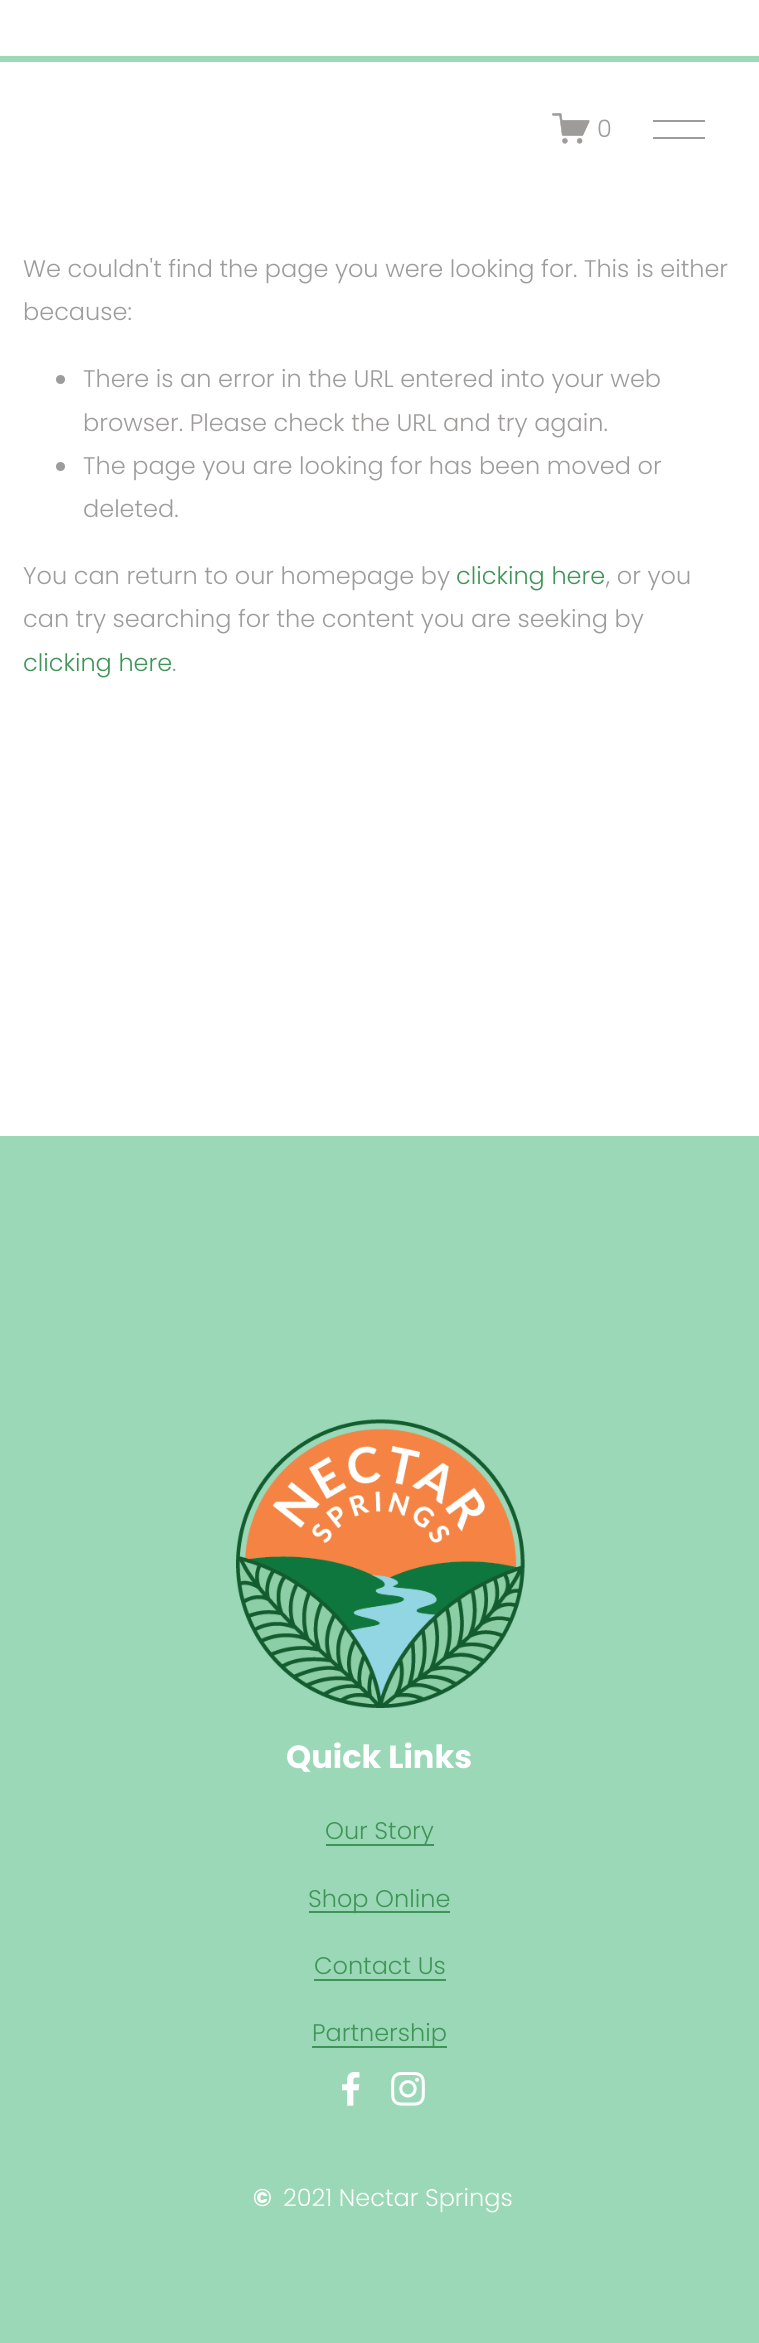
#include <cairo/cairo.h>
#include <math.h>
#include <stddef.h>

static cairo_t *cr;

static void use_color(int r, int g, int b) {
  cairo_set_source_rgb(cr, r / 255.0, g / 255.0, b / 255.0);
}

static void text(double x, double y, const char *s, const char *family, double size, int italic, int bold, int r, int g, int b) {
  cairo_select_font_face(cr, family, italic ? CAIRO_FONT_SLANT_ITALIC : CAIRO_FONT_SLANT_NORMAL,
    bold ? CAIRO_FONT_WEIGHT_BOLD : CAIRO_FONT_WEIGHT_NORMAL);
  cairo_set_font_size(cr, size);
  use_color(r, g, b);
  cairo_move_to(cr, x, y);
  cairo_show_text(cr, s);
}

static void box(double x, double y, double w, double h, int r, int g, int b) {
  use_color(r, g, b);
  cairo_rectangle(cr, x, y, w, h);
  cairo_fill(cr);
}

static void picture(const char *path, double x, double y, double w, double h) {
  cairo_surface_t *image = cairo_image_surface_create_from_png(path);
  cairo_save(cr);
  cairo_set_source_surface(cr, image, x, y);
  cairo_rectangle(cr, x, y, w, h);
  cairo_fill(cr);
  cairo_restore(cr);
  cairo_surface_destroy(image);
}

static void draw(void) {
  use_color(255, 255, 255);
  cairo_paint(cr);
  box(0, 56, 759, 6, 155, 216, 183);
  picture("img_01.png", 552, 113, 38, 31);
  box(653, 120, 52, 2, 158, 155, 155);
  box(653, 137, 52, 2, 158, 155, 155);
  cairo_arc(cr, 60.5, 379.5, 4.5, 0, 2 * M_PI);
  cairo_fill(cr);
  cairo_arc(cr, 60.5, 466.5, 4.5, 0, 2 * M_PI);
  cairo_fill(cr);
  box(0, 1136, 759, 1207, 155, 216, 183);
  picture("img_02.png", 236, 1419, 289, 289);
  box(326, 1844, 108, 2, 63, 148, 87);
  box(309, 1911, 141, 2, 63, 148, 87);
  box(314, 1979, 132, 2, 63, 148, 87);
  box(312, 2046, 135, 2, 63, 148, 87);
  picture("img_03.png", 342, 2072, 18, 34);
  picture("img_04.png", 391, 2072, 34, 34);
  text(597, 137, "0", "Poppins Light", 24, 0, 0, 158, 155, 155);
  text(23, 277, "We couldn't find the page you were looking for. This is either", "Poppins Light", 24, 0, 0, 158, 155, 155);
  text(23, 320, "because:", "Poppins Light", 24, 0, 0, 158, 155, 155);
  text(83, 387, "There is an error in the URL entered into your web", "Poppins Light", 24, 0, 0, 158, 155, 155);
  text(83, 431, "browser. Please check the URL and try again.", "Poppins Light", 24, 0, 0, 158, 155, 155);
  text(83, 474, "The page you are looking for has been moved or", "Poppins Light", 24, 0, 0, 158, 155, 155);
  text(83, 517, "deleted.", "Poppins Light", 24, 0, 0, 158, 155, 155);
  text(23, 584, "You can return to our homepage by", "Poppins Light", 24, 0, 0, 158, 155, 155);
  text(456, 584, "clicking here", "Poppins Light", 24, 0, 0, 63, 148, 87);
  text(606, 584, ", or you", "Poppins Light", 24, 0, 0, 158, 155, 155);
  text(23, 627, "can try searching for the content you are seeking by", "Poppins Light", 24, 0, 0, 158, 155, 155);
  text(23, 671, "clicking here", "Poppins Light", 24, 0, 0, 63, 148, 87);
  text(172, 671, ".", "Poppins Light", 24, 0, 0, 158, 155, 155);
  text(286, 1768, "Quick Links", "Poppins", 32, 0, 1, 255, 255, 255);
  text(325, 1839, "Our Story", "Poppins Light", 24, 0, 0, 63, 148, 87);
  text(308, 1907, "Shop Online", "Poppins Light", 24, 0, 0, 63, 148, 87);
  text(314, 1974, "Contact Us", "Poppins Light", 24, 0, 0, 63, 148, 87);
  text(312, 2041, "Partnership", "Poppins Light", 24, 0, 0, 63, 148, 87);
  text(253, 2206, "©", "Poppins", 24, 0, 1, 255, 255, 255);
  text(283, 2206, "2021 Nectar Springs", "Poppins Light", 24, 0, 0, 255, 255, 255);
}

int main(void) {
  cairo_surface_t *surface = cairo_image_surface_create(CAIRO_FORMAT_RGB24, 759, 2343);
  cr = cairo_create(surface);
  cairo_font_options_t *options = cairo_font_options_create();
  cairo_font_options_set_hint_metrics(options, CAIRO_HINT_METRICS_OFF);
  cairo_font_options_set_hint_style(options, CAIRO_HINT_STYLE_NONE);
  cairo_set_font_options(cr, options);
  cairo_set_miter_limit(cr, 4);
  draw();
  cairo_surface_write_to_png(surface, "out.png");
  cairo_font_options_destroy(options);
  cairo_destroy(cr);
  cairo_surface_destroy(surface);
  return 0;
}
